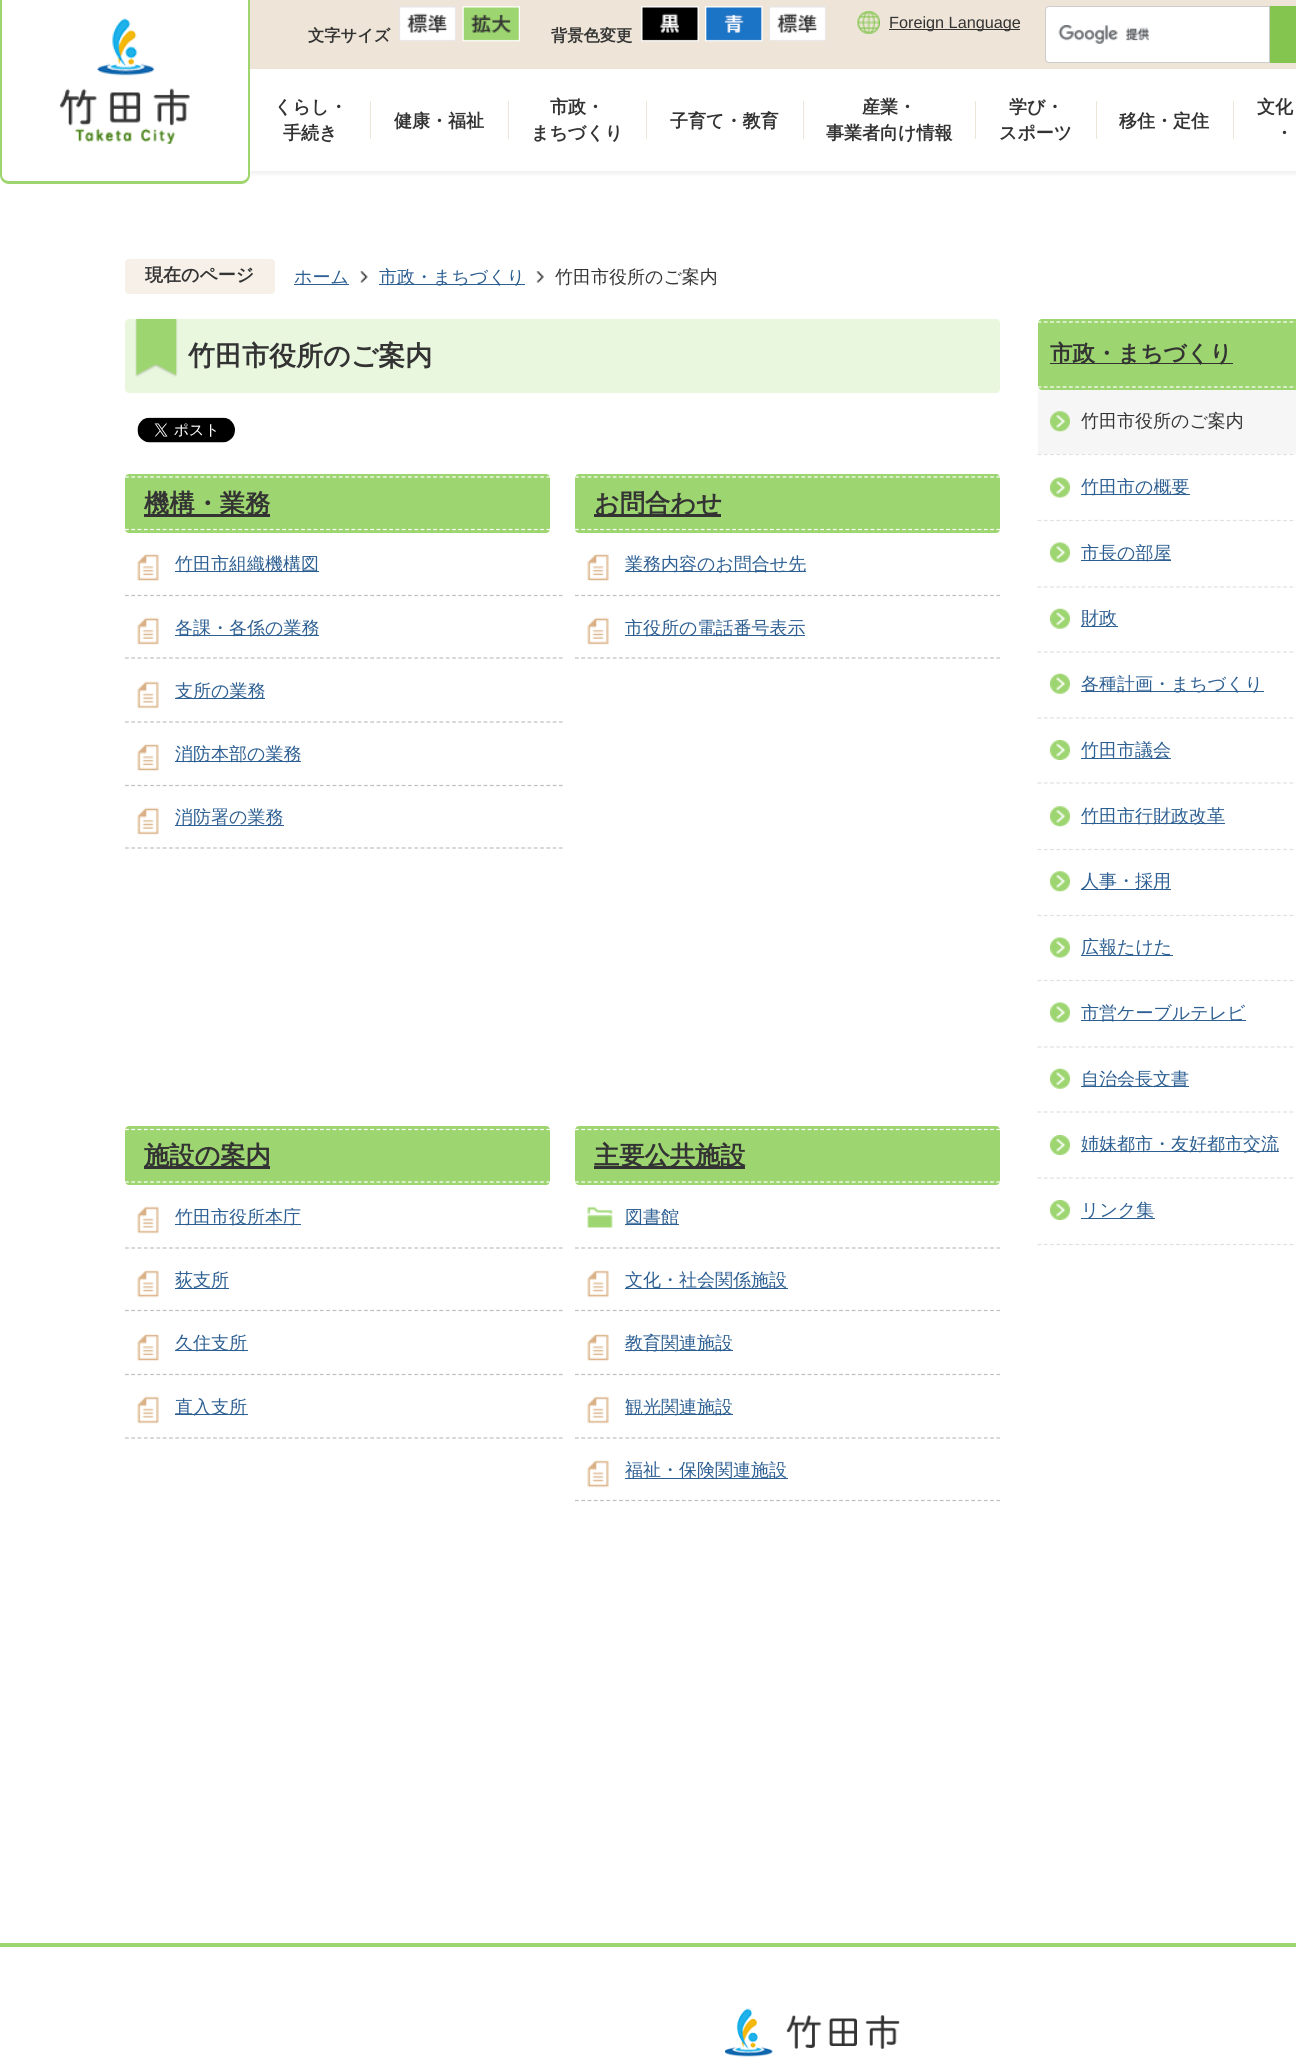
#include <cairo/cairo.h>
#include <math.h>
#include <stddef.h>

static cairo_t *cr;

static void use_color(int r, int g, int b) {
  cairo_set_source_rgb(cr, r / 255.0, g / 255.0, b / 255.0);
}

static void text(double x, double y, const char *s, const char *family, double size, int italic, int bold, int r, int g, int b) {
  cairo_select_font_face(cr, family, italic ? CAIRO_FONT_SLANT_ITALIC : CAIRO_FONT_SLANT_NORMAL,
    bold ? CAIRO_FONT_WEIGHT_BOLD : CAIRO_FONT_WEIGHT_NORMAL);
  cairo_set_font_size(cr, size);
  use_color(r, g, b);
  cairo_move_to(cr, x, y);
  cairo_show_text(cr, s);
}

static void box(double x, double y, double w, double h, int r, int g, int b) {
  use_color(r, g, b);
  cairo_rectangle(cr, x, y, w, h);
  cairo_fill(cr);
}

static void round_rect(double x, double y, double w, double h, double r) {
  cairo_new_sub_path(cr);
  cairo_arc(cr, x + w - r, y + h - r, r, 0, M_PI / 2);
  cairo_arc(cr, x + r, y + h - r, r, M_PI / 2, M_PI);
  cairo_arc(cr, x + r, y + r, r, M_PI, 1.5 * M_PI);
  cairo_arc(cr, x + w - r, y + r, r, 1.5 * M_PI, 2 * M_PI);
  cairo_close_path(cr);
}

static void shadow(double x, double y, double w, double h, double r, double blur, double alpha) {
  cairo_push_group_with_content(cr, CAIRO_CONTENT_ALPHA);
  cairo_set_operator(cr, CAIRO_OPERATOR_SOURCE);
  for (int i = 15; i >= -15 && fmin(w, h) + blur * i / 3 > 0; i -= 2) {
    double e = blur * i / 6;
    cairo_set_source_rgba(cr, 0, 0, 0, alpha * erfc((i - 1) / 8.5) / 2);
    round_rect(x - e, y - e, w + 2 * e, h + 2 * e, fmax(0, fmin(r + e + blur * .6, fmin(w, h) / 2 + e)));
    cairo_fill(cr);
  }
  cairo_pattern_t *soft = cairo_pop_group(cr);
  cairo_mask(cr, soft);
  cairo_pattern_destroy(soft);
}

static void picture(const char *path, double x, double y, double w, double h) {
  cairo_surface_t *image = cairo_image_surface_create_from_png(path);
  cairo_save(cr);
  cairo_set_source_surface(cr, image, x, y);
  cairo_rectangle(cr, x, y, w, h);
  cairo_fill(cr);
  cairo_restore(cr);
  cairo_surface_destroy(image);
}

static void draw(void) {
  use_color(255, 255, 255);
  cairo_paint(cr);
  cairo_save(cr);
  cairo_rectangle(cr, 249, 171, 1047, 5);
  cairo_clip(cr);
  use_color(102, 102, 102);
  shadow(1, 71, 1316, 103, 13, 2.5, 0.1);
  cairo_restore(cr);
  box(250, 0, 1046, 69, 238, 229, 216);
  use_color(255, 255, 255);
  cairo_new_path(cr);
  cairo_move_to(cr, 0, 0);
  cairo_line_to(cr, 250, 0);
  cairo_line_to(cr, 250, 175);
  cairo_curve_to(cr, 250, 180, 246, 184, 241, 184);
  cairo_line_to(cr, 9, 184);
  cairo_curve_to(cr, 4, 184, 0, 180, 0, 175);
  cairo_close_path(cr);
  cairo_fill(cr);
  use_color(158, 213, 111);
  cairo_set_fill_rule(cr, CAIRO_FILL_RULE_EVEN_ODD);
  cairo_new_path(cr);
  cairo_move_to(cr, 0, 0);
  cairo_line_to(cr, 250, 0);
  cairo_line_to(cr, 250, 175);
  cairo_curve_to(cr, 250, 180, 246, 184, 241, 184);
  cairo_line_to(cr, 9, 184);
  cairo_curve_to(cr, 4, 184, 0, 180, 0, 175);
  cairo_close_path(cr);
  cairo_move_to(cr, 2, 0);
  cairo_line_to(cr, 248, 0);
  cairo_line_to(cr, 248, 175);
  cairo_curve_to(cr, 248, 178, 245, 181, 241, 181);
  cairo_line_to(cr, 9, 181);
  cairo_curve_to(cr, 5, 181, 2, 178, 2, 175);
  cairo_close_path(cr);
  cairo_fill(cr);
  picture("img_01.png", 60, 18, 130, 126);
  picture("img_02.png", 857, 11, 23, 23);
  box(889, 29, 131, 1, 51, 51, 51);
  use_color(255, 255, 255);
  cairo_new_path(cr);
  cairo_move_to(cr, 1049, 6.5);
  cairo_line_to(cr, 1269.5, 6.5);
  cairo_line_to(cr, 1269.5, 62.5);
  cairo_line_to(cr, 1049, 62.5);
  cairo_curve_to(cr, 1047, 62.5, 1045.5, 61, 1045.5, 59);
  cairo_line_to(cr, 1045.5, 10);
  cairo_curve_to(cr, 1045.5, 8, 1047, 6.5, 1049, 6.5);
  cairo_close_path(cr);
  cairo_fill_preserve(cr);
  use_color(204, 204, 204);
  cairo_set_line_width(cr, 1);
  cairo_stroke(cr);
  picture("img_03.png", 1058, 25, 92, 19);
  box(1270, 6, 26, 57, 132, 197, 79);
  picture("img_04.png", 399, 6, 57, 35);
  picture("img_05.png", 462, 6, 58, 36);
  picture("img_06.png", 641, 6, 58, 36);
  picture("img_07.png", 705, 6, 58, 36);
  picture("img_08.png", 769, 6, 57, 35);
  box(370, 101, 1, 38, 239, 229, 217);
  box(508, 101, 1, 38, 239, 229, 217);
  box(646, 101, 1, 38, 239, 229, 217);
  box(803, 101, 1, 38, 239, 229, 217);
  box(975, 101, 1, 38, 239, 229, 217);
  box(1096, 101, 1, 38, 239, 229, 217);
  box(1233, 101, 1, 38, 239, 229, 217);
  use_color(246, 240, 232);
  round_rect(125, 259, 150, 35, 4);
  cairo_fill(cr);
  box(294, 284, 55, 1, 45, 95, 146);
  picture("img_09.png", 360, 271, 8, 12);
  box(379, 284, 146, 1, 45, 95, 146);
  picture("img_10.png", 536, 271, 8, 12);
  use_color(234, 247, 223);
  round_rect(125, 319, 875, 74, 4);
  cairo_fill(cr);
  picture("img_11.png", 135, 318, 43, 59);
  picture("img_12.png", 137, 417, 98, 26);
  use_color(157, 213, 112);
  round_rect(125, 474, 425, 59, 4);
  cairo_fill(cr);
  cairo_new_path(cr);
  cairo_move_to(cr, 125, 477);
  cairo_line_to(cr, 550, 477);
  use_color(255, 255, 255);
  cairo_set_line_width(cr, 1.2);
  cairo_set_dash(cr, (double[]){3.75, 2.54}, 2, 0);
  cairo_stroke(cr);
  cairo_new_path(cr);
  cairo_move_to(cr, 125, 529.5);
  cairo_line_to(cr, 550, 529.5);
  cairo_stroke(cr);
  box(144, 514, 126, 3, 51, 51, 51);
  picture("img_13.png", 137, 554, 22, 27);
  cairo_new_path(cr);
  cairo_move_to(cr, 125, 595.5);
  cairo_line_to(cr, 562.5, 595.5);
  use_color(191, 191, 191);
  cairo_stroke(cr);
  box(175, 571, 144, 1, 45, 95, 146);
  picture("img_14.png", 137, 617, 22, 28);
  cairo_new_path(cr);
  cairo_move_to(cr, 125, 658);
  cairo_line_to(cr, 562.5, 658);
  use_color(191, 191, 191);
  cairo_stroke(cr);
  box(175, 635, 144, 1, 45, 95, 146);
  picture("img_15.png", 137, 681, 22, 28);
  cairo_new_path(cr);
  cairo_move_to(cr, 125, 722);
  cairo_line_to(cr, 562.5, 722);
  use_color(191, 191, 191);
  cairo_stroke(cr);
  box(175, 698, 90, 1, 45, 95, 146);
  picture("img_13.png", 137, 744, 22, 27);
  cairo_new_path(cr);
  cairo_move_to(cr, 125, 785.5);
  cairo_line_to(cr, 562.5, 785.5);
  use_color(191, 191, 191);
  cairo_stroke(cr);
  box(175, 761, 126, 1, 45, 95, 146);
  picture("img_14.png", 137, 807, 22, 28);
  cairo_new_path(cr);
  cairo_move_to(cr, 125, 848);
  cairo_line_to(cr, 562.5, 848);
  use_color(191, 191, 191);
  cairo_stroke(cr);
  box(175, 825, 109, 1, 45, 95, 146);
  use_color(157, 213, 112);
  round_rect(575, 474, 425, 59, 4);
  cairo_fill(cr);
  cairo_new_path(cr);
  cairo_move_to(cr, 575, 477);
  cairo_line_to(cr, 1000, 477);
  use_color(255, 255, 255);
  cairo_stroke(cr);
  cairo_new_path(cr);
  cairo_move_to(cr, 575, 529.5);
  cairo_line_to(cr, 1000, 529.5);
  cairo_stroke(cr);
  box(594, 514, 127, 3, 51, 51, 51);
  picture("img_16.png", 587, 554, 22, 27);
  cairo_save(cr);
  cairo_set_fill_rule(cr, CAIRO_FILL_RULE_WINDING);
  cairo_rectangle(cr, 125, 449, 875, 1369);
  cairo_clip(cr);
  cairo_new_path(cr);
  cairo_move_to(cr, 575, 595.5);
  cairo_line_to(cr, 1012.5, 595.5);
  use_color(191, 191, 191);
  cairo_stroke(cr);
  cairo_restore(cr);
  box(625, 571, 181, 1, 45, 95, 146);
  picture("img_17.png", 587, 617, 22, 28);
  cairo_save(cr);
  cairo_set_fill_rule(cr, CAIRO_FILL_RULE_WINDING);
  cairo_rectangle(cr, 125, 449, 875, 1369);
  cairo_clip(cr);
  cairo_new_path(cr);
  cairo_move_to(cr, 575, 658);
  cairo_line_to(cr, 1012.5, 658);
  use_color(191, 191, 191);
  cairo_stroke(cr);
  cairo_restore(cr);
  box(625, 635, 180, 1, 45, 95, 146);
  use_color(157, 213, 112);
  round_rect(125, 1126, 425, 59, 4);
  cairo_fill(cr);
  cairo_new_path(cr);
  cairo_move_to(cr, 125, 1129.5);
  cairo_line_to(cr, 550, 1129.5);
  use_color(255, 255, 255);
  cairo_stroke(cr);
  cairo_new_path(cr);
  cairo_move_to(cr, 125, 1182);
  cairo_line_to(cr, 550, 1182);
  cairo_stroke(cr);
  box(144, 1166, 126, 3, 51, 51, 51);
  picture("img_15.png", 137, 1206, 22, 28);
  cairo_new_path(cr);
  cairo_move_to(cr, 125, 1248);
  cairo_line_to(cr, 562.5, 1248);
  use_color(191, 191, 191);
  cairo_stroke(cr);
  box(175, 1224, 126, 1, 45, 95, 146);
  picture("img_18.png", 137, 1270, 22, 28);
  cairo_new_path(cr);
  cairo_move_to(cr, 125, 1310.5);
  cairo_line_to(cr, 562.5, 1310.5);
  use_color(191, 191, 191);
  cairo_stroke(cr);
  box(175, 1288, 54, 1, 45, 95, 146);
  picture("img_13.png", 137, 1334, 22, 27);
  cairo_new_path(cr);
  cairo_move_to(cr, 125, 1374.5);
  cairo_line_to(cr, 562.5, 1374.5);
  use_color(191, 191, 191);
  cairo_stroke(cr);
  box(175, 1350, 73, 1, 45, 95, 146);
  picture("img_15.png", 137, 1396, 22, 28);
  cairo_new_path(cr);
  cairo_move_to(cr, 125, 1438);
  cairo_line_to(cr, 562.5, 1438);
  use_color(191, 191, 191);
  cairo_stroke(cr);
  box(175, 1414, 73, 1, 45, 95, 146);
  use_color(157, 213, 112);
  round_rect(575, 1126, 425, 59, 4);
  cairo_fill(cr);
  cairo_new_path(cr);
  cairo_move_to(cr, 575, 1129.5);
  cairo_line_to(cr, 1000, 1129.5);
  use_color(255, 255, 255);
  cairo_stroke(cr);
  cairo_new_path(cr);
  cairo_move_to(cr, 575, 1182);
  cairo_line_to(cr, 1000, 1182);
  cairo_stroke(cr);
  box(594, 1166, 151, 3, 51, 51, 51);
  picture("img_19.png", 587, 1206, 26, 22);
  cairo_save(cr);
  cairo_set_fill_rule(cr, CAIRO_FILL_RULE_WINDING);
  cairo_rectangle(cr, 125, 449, 875, 1369);
  cairo_clip(cr);
  cairo_new_path(cr);
  cairo_move_to(cr, 575, 1248);
  cairo_line_to(cr, 1012.5, 1248);
  use_color(191, 191, 191);
  cairo_stroke(cr);
  cairo_restore(cr);
  box(625, 1224, 54, 1, 45, 95, 146);
  picture("img_20.png", 587, 1270, 22, 28);
  cairo_save(cr);
  cairo_set_fill_rule(cr, CAIRO_FILL_RULE_WINDING);
  cairo_rectangle(cr, 125, 449, 875, 1369);
  cairo_clip(cr);
  cairo_new_path(cr);
  cairo_move_to(cr, 575, 1310.5);
  cairo_line_to(cr, 1012.5, 1310.5);
  use_color(191, 191, 191);
  cairo_stroke(cr);
  cairo_restore(cr);
  box(625, 1288, 163, 1, 45, 95, 146);
  picture("img_16.png", 587, 1334, 22, 27);
  cairo_save(cr);
  cairo_set_fill_rule(cr, CAIRO_FILL_RULE_WINDING);
  cairo_rectangle(cr, 125, 449, 875, 1369);
  cairo_clip(cr);
  cairo_new_path(cr);
  cairo_move_to(cr, 575, 1374.5);
  cairo_line_to(cr, 1012.5, 1374.5);
  use_color(191, 191, 191);
  cairo_stroke(cr);
  cairo_restore(cr);
  box(625, 1350, 108, 1, 45, 95, 146);
  picture("img_21.png", 587, 1396, 22, 28);
  cairo_save(cr);
  cairo_set_fill_rule(cr, CAIRO_FILL_RULE_WINDING);
  cairo_rectangle(cr, 125, 449, 875, 1369);
  cairo_clip(cr);
  cairo_new_path(cr);
  cairo_move_to(cr, 575, 1438);
  cairo_line_to(cr, 1012.5, 1438);
  use_color(191, 191, 191);
  cairo_stroke(cr);
  cairo_restore(cr);
  box(625, 1414, 108, 1, 45, 95, 146);
  picture("img_20.png", 587, 1460, 22, 28);
  cairo_save(cr);
  cairo_set_fill_rule(cr, CAIRO_FILL_RULE_WINDING);
  cairo_rectangle(cr, 125, 449, 875, 1369);
  cairo_clip(cr);
  cairo_new_path(cr);
  cairo_move_to(cr, 575, 1500.5);
  cairo_line_to(cr, 1012.5, 1500.5);
  use_color(191, 191, 191);
  cairo_stroke(cr);
  cairo_restore(cr);
  box(625, 1478, 163, 1, 45, 95, 146);
  use_color(157, 213, 112);
  round_rect(1038, 319, 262, 71, 4);
  cairo_fill(cr);
  cairo_new_path(cr);
  cairo_move_to(cr, 1037.5, 322);
  cairo_line_to(cr, 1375, 322);
  use_color(255, 255, 255);
  cairo_set_dash(cr, (double[]){3.75, 2.55}, 2, 0);
  cairo_stroke(cr);
  cairo_new_path(cr);
  cairo_move_to(cr, 1037.5, 387);
  cairo_line_to(cr, 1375, 387);
  cairo_stroke(cr);
  box(1050, 363, 183, 1, 51, 51, 51);
  cairo_new_path(cr);
  cairo_move_to(cr, 1037.5, 454.5);
  cairo_line_to(cr, 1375, 454.5);
  use_color(224, 224, 224);
  cairo_stroke(cr);
  box(1038, 390, 258, 64, 246, 246, 246);
  picture("img_22.png", 1050, 411, 20, 21);
  cairo_new_path(cr);
  cairo_move_to(cr, 1037.5, 520.5);
  cairo_line_to(cr, 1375, 520.5);
  use_color(224, 224, 224);
  cairo_stroke(cr);
  picture("img_23.png", 1050, 477, 20, 21);
  box(1081, 494, 109, 1, 45, 95, 146);
  cairo_new_path(cr);
  cairo_move_to(cr, 1037.5, 587);
  cairo_line_to(cr, 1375, 587);
  use_color(224, 224, 224);
  cairo_stroke(cr);
  picture("img_23.png", 1050, 542, 20, 21);
  box(1081, 560, 90, 1, 45, 95, 146);
  cairo_new_path(cr);
  cairo_move_to(cr, 1037.5, 652);
  cairo_line_to(cr, 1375, 652);
  use_color(224, 224, 224);
  cairo_stroke(cr);
  picture("img_24.png", 1050, 608, 20, 21);
  box(1081, 626, 37, 1, 45, 95, 146);
  cairo_new_path(cr);
  cairo_move_to(cr, 1037.5, 718);
  cairo_line_to(cr, 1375, 718);
  use_color(224, 224, 224);
  cairo_stroke(cr);
  picture("img_24.png", 1050, 673, 20, 21);
  box(1081, 691, 183, 1, 45, 95, 146);
  cairo_new_path(cr);
  cairo_move_to(cr, 1037.5, 783);
  cairo_line_to(cr, 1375, 783);
  use_color(224, 224, 224);
  cairo_stroke(cr);
  picture("img_25.png", 1050, 740, 20, 20);
  box(1081, 758, 90, 1, 45, 95, 146);
  cairo_new_path(cr);
  cairo_move_to(cr, 1037.5, 849.5);
  cairo_line_to(cr, 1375, 849.5);
  use_color(224, 224, 224);
  cairo_stroke(cr);
  picture("img_26.png", 1050, 806, 20, 21);
  box(1081, 823, 144, 1, 45, 95, 146);
  cairo_new_path(cr);
  cairo_move_to(cr, 1037.5, 915.5);
  cairo_line_to(cr, 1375, 915.5);
  use_color(224, 224, 224);
  cairo_stroke(cr);
  picture("img_26.png", 1050, 871, 20, 21);
  box(1081, 889, 90, 1, 45, 95, 146);
  cairo_new_path(cr);
  cairo_move_to(cr, 1037.5, 980.5);
  cairo_line_to(cr, 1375, 980.5);
  use_color(224, 224, 224);
  cairo_stroke(cr);
  picture("img_23.png", 1050, 937, 20, 21);
  box(1081, 955, 92, 1, 45, 95, 146);
  cairo_new_path(cr);
  cairo_move_to(cr, 1037.5, 1047);
  cairo_line_to(cr, 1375, 1047);
  use_color(224, 224, 224);
  cairo_stroke(cr);
  picture("img_23.png", 1050, 1002, 20, 21);
  box(1081, 1020, 165, 1, 45, 95, 146);
  cairo_new_path(cr);
  cairo_move_to(cr, 1037.5, 1112);
  cairo_line_to(cr, 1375, 1112);
  use_color(224, 224, 224);
  cairo_stroke(cr);
  picture("img_24.png", 1050, 1068, 20, 21);
  box(1081, 1086, 108, 1, 45, 95, 146);
  cairo_new_path(cr);
  cairo_move_to(cr, 1037.5, 1178);
  cairo_line_to(cr, 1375, 1178);
  use_color(224, 224, 224);
  cairo_stroke(cr);
  picture("img_25.png", 1050, 1135, 20, 20);
  box(1081, 1151, 198, 1, 45, 95, 146);
  cairo_new_path(cr);
  cairo_move_to(cr, 1037.5, 1244.5);
  cairo_line_to(cr, 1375, 1244.5);
  use_color(224, 224, 224);
  cairo_stroke(cr);
  picture("img_25.png", 1050, 1200, 20, 20);
  box(1081, 1218, 74, 1, 45, 95, 146);
  box(0, 1943, 1296, 4, 157, 213, 112);
  picture("img_27.png", 725, 2008, 175, 49);
  text(889, 28, "Foreign Language", "Liberation Sans", 16.25, 0, 0, 51, 51, 51);
  text(308, 41, "文字サイズ", "WenQuanYi Zen Hei", 16.25, 0, 1, 51, 51, 51);
  text(551, 41, "背景色変更", "WenQuanYi Zen Hei", 16.25, 0, 1, 51, 51, 51);
  text(274, 113, "くらし・", "WenQuanYi Zen Hei", 18, 0, 1, 51, 51, 51);
  text(283, 139, "手続き", "WenQuanYi Zen Hei", 18, 0, 1, 51, 51, 51);
  text(394, 127, "健康・福祉", "WenQuanYi Zen Hei", 18, 0, 1, 51, 51, 51);
  text(550, 113, "市政・", "WenQuanYi Zen Hei", 18, 0, 1, 51, 51, 51);
  text(531, 139, "まちづくり", "WenQuanYi Zen Hei", 18, 0, 1, 51, 51, 51);
  text(670, 127, "子育て・教育", "WenQuanYi Zen Hei", 18, 0, 1, 51, 51, 51);
  text(862, 113, "産業・", "WenQuanYi Zen Hei", 18, 0, 1, 51, 51, 51);
  text(826, 139, "事業者向け情報", "WenQuanYi Zen Hei", 18, 0, 1, 51, 51, 51);
  text(1009, 113, "学び・", "WenQuanYi Zen Hei", 18, 0, 1, 51, 51, 51);
  text(999, 139, "スポーツ", "WenQuanYi Zen Hei", 18, 0, 1, 51, 51, 51);
  text(1119, 127, "移住・定住", "WenQuanYi Zen Hei", 18, 0, 1, 51, 51, 51);
  text(1257, 113, "文化", "WenQuanYi Zen Hei", 18, 0, 1, 51, 51, 51);
  text(1275, 139, "・", "WenQuanYi Zen Hei", 18, 0, 1, 51, 51, 51);
  text(145, 281, "現在のページ", "WenQuanYi Zen Hei", 18, 0, 1, 51, 51, 51);
  text(294, 283, "ホーム", "WenQuanYi Zen Hei Medium", 18, 0, 0, 45, 95, 146);
  text(379, 283, "市政・まちづくり", "WenQuanYi Zen Hei Medium", 18, 0, 0, 45, 95, 146);
  text(555, 283, "竹田市役所のご案内", "WenQuanYi Zen Hei Medium", 18, 0, 0, 51, 51, 51);
  text(188, 365, "竹田市役所のご案内", "WenQuanYi Zen Hei", 27, 0, 1, 51, 51, 51);
  text(144, 512, "機構・業務", "WenQuanYi Zen Hei", 25.25, 0, 1, 51, 51, 51);
  text(175, 570, "竹田市組織機構図", "WenQuanYi Zen Hei Medium", 18, 0, 0, 45, 95, 146);
  text(175, 634, "各課・各係の業務", "WenQuanYi Zen Hei Medium", 18, 0, 0, 45, 95, 146);
  text(175, 697, "支所の業務", "WenQuanYi Zen Hei Medium", 18, 0, 0, 45, 95, 146);
  text(175, 760, "消防本部の業務", "WenQuanYi Zen Hei Medium", 18, 0, 0, 45, 95, 146);
  text(175, 823, "消防署の業務", "WenQuanYi Zen Hei Medium", 18, 0, 0, 45, 95, 146);
  text(594, 512, "お問合わせ", "WenQuanYi Zen Hei", 25.25, 0, 1, 51, 51, 51);
  text(625, 570, "業務内容のお問合せ先", "WenQuanYi Zen Hei Medium", 18, 0, 0, 45, 95, 146);
  text(625, 634, "市役所の電話番号表示", "WenQuanYi Zen Hei Medium", 18, 0, 0, 45, 95, 146);
  text(144, 1164, "施設の案内", "WenQuanYi Zen Hei", 25.25, 0, 1, 51, 51, 51);
  text(175, 1223, "竹田市役所本庁", "WenQuanYi Zen Hei Medium", 18, 0, 0, 45, 95, 146);
  text(175, 1286, "荻支所", "WenQuanYi Zen Hei Medium", 18, 0, 0, 45, 95, 146);
  text(175, 1349, "久住支所", "WenQuanYi Zen Hei Medium", 18, 0, 0, 45, 95, 146);
  text(175, 1413, "直入支所", "WenQuanYi Zen Hei Medium", 18, 0, 0, 45, 95, 146);
  text(594, 1164, "主要公共施設", "WenQuanYi Zen Hei", 25.25, 0, 1, 51, 51, 51);
  text(625, 1223, "図書館", "WenQuanYi Zen Hei Medium", 18, 0, 0, 45, 95, 146);
  text(625, 1286, "文化・社会関係施設", "WenQuanYi Zen Hei Medium", 18, 0, 0, 45, 95, 146);
  text(625, 1349, "教育関連施設", "WenQuanYi Zen Hei Medium", 18, 0, 0, 45, 95, 146);
  text(625, 1413, "観光関連施設", "WenQuanYi Zen Hei Medium", 18, 0, 0, 45, 95, 146);
  text(625, 1476, "福祉・保険関連施設", "WenQuanYi Zen Hei Medium", 18, 0, 0, 45, 95, 146);
  text(1050, 361, "市政・まちづくり", "WenQuanYi Zen Hei", 22.5, 0, 1, 51, 51, 51);
  text(1081, 427, "竹田市役所のご案内", "WenQuanYi Zen Hei Medium", 18, 0, 0, 51, 51, 51);
  text(1081, 493, "竹田市の概要", "WenQuanYi Zen Hei Medium", 18, 0, 0, 45, 95, 146);
  text(1081, 559, "市長の部屋", "WenQuanYi Zen Hei Medium", 18, 0, 0, 45, 95, 146);
  text(1081, 624, "財政", "WenQuanYi Zen Hei Medium", 18, 0, 0, 45, 95, 146);
  text(1081, 690, "各種計画・まちづくり", "WenQuanYi Zen Hei Medium", 18, 0, 0, 45, 95, 146);
  text(1081, 756, "竹田市議会", "WenQuanYi Zen Hei Medium", 18, 0, 0, 45, 95, 146);
  text(1081, 822, "竹田市行財政改革", "WenQuanYi Zen Hei Medium", 18, 0, 0, 45, 95, 146);
  text(1081, 887, "人事・採用", "WenQuanYi Zen Hei Medium", 18, 0, 0, 45, 95, 146);
  text(1081, 953, "広報たけた", "WenQuanYi Zen Hei Medium", 18, 0, 0, 45, 95, 146);
  text(1081, 1019, "市営ケーブルテレビ", "WenQuanYi Zen Hei Medium", 18, 0, 0, 45, 95, 146);
  text(1081, 1085, "自治会長文書", "WenQuanYi Zen Hei Medium", 18, 0, 0, 45, 95, 146);
  text(1081, 1150, "姉妹都市・友好都市交流", "WenQuanYi Zen Hei Medium", 18, 0, 0, 45, 95, 146);
  text(1081, 1216, "リンク集", "WenQuanYi Zen Hei Medium", 18, 0, 0, 45, 95, 146);
}

int main(void) {
  cairo_surface_t *surface = cairo_image_surface_create(CAIRO_FORMAT_RGB24, 1296, 2067);
  cr = cairo_create(surface);
  cairo_font_options_t *options = cairo_font_options_create();
  cairo_font_options_set_hint_metrics(options, CAIRO_HINT_METRICS_OFF);
  cairo_font_options_set_hint_style(options, CAIRO_HINT_STYLE_NONE);
  cairo_set_font_options(cr, options);
  cairo_set_miter_limit(cr, 4);
  draw();
  cairo_surface_write_to_png(surface, "out.png");
  cairo_font_options_destroy(options);
  cairo_destroy(cr);
  cairo_surface_destroy(surface);
  return 0;
}
